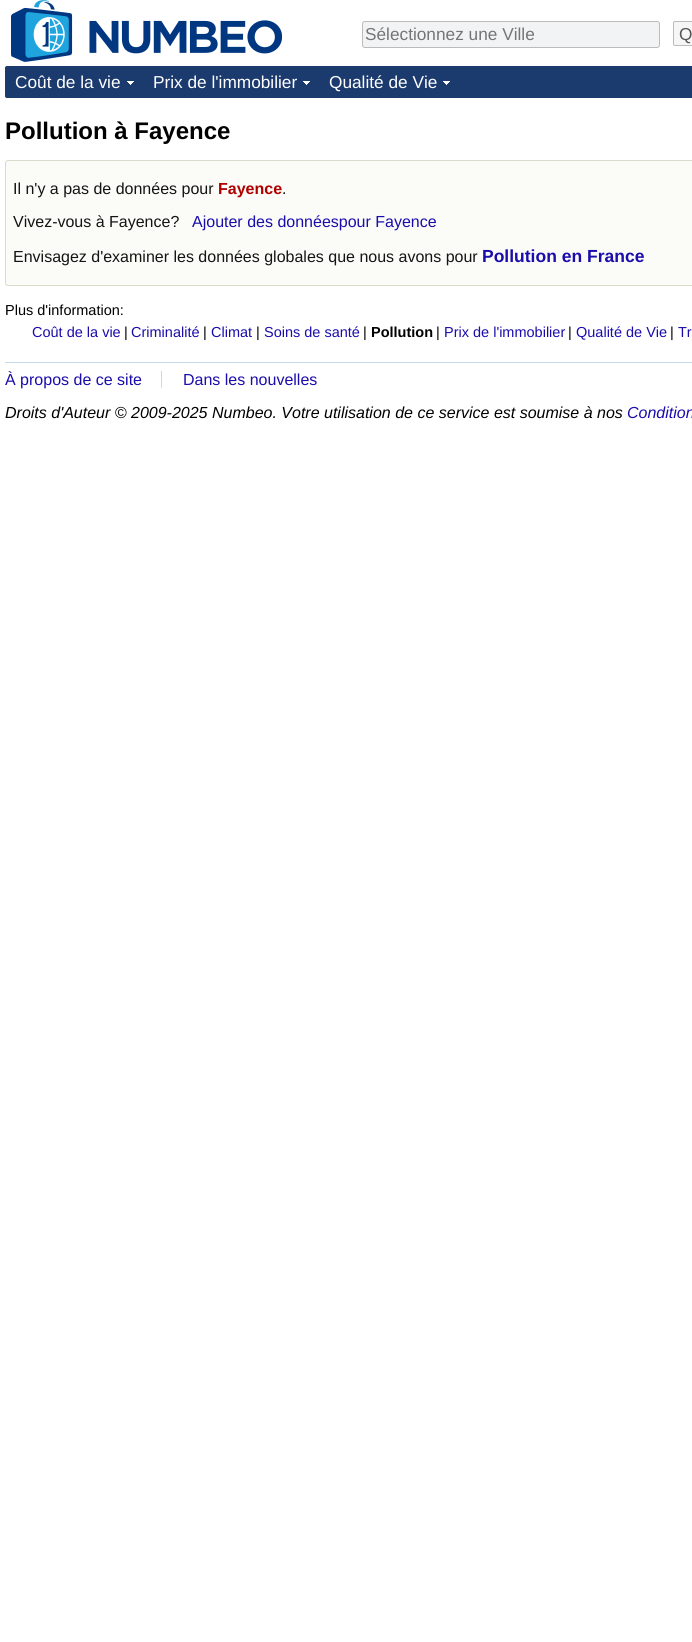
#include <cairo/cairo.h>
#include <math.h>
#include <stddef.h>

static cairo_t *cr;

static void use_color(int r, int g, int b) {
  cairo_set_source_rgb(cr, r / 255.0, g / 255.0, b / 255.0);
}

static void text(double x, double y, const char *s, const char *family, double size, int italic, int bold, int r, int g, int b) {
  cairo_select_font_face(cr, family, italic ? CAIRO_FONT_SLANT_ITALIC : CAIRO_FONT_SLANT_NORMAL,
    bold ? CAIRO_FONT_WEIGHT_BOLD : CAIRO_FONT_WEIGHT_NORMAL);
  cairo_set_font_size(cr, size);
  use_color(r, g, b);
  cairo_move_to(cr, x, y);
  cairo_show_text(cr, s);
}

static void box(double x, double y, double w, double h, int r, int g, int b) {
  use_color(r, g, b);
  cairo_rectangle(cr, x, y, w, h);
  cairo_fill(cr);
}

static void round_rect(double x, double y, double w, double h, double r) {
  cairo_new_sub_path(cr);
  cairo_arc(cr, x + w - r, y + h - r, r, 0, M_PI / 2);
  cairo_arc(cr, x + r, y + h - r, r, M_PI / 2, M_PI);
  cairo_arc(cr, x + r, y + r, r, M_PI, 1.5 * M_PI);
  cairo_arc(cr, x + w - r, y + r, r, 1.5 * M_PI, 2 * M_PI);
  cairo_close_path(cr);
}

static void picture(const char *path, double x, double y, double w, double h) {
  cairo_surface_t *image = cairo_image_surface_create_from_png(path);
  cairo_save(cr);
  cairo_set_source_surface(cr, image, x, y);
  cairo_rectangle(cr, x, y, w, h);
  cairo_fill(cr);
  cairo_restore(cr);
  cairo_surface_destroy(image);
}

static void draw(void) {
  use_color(255, 255, 255);
  cairo_paint(cr);
  picture("img_01.png", 11, 0, 62, 62);
  picture("img_02.png", 89, 20, 193, 34);
  use_color(241, 243, 244);
  round_rect(362.5, 21.5, 297, 26, 2.5);
  cairo_fill_preserve(cr);
  use_color(187, 187, 187);
  cairo_set_line_width(cr, 1);
  cairo_stroke(cr);
  use_color(246, 246, 246);
  round_rect(673.5, 21.5, 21, 24, 1.5);
  cairo_fill_preserve(cr);
  use_color(187, 187, 187);
  cairo_stroke(cr);
  use_color(27, 59, 111);
  round_rect(5, 66, 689, 32, 2);
  cairo_fill(cr);
  round_rect(5, 66, 138, 32, 3);
  cairo_fill(cr);
  picture("img_03.png", 127, 81, 7, 4);
  picture("img_03.png", 303, 81, 7, 4);
  picture("img_03.png", 443, 81, 7, 4);
  use_color(251, 251, 248);
  round_rect(5.5, 160.5, 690, 125, 2.5);
  cairo_fill_preserve(cr);
  use_color(220, 218, 203);
  cairo_stroke(cr);
  box(5, 362, 687, 1, 197, 219, 236);
  box(161, 371, 1, 17, 197, 219, 236);
  text(365, 40, "Sélectionnez une Ville", "Liberation Sans", 17.25, 0, 0, 117, 117, 117);
  text(679, 40, "Q", "Liberation Sans", 17.25, 0, 0, 85, 85, 85);
  text(15, 88, "Coût de la vie", "Liberation Sans", 17.25, 0, 0, 255, 255, 255);
  text(153, 88, "Prix de l'immobilier", "Liberation Sans", 17.25, 0, 0, 255, 255, 255);
  text(329, 88, "Qualité de Vie", "Liberation Sans", 17.25, 0, 0, 255, 255, 255);
  text(5, 139, "Pollution à Fayence", "Liberation Sans", 24, 0, 1, 0, 0, 0);
  text(13, 194, "Il n'y a pas de données pour", "Liberation Sans", 16, 0, 0, 20, 20, 18);
  text(218, 194, "Fayence", "Liberation Sans", 16, 0, 1, 175, 0, 0);
  text(282, 194, ".", "Liberation Sans", 16, 0, 0, 20, 20, 18);
  text(13, 227, "Vivez-vous à Fayence?", "Liberation Sans", 16, 0, 0, 20, 20, 18);
  text(192, 227, "Ajouter des donnéespour Fayence", "Liberation Sans", 16, 0, 0, 26, 13, 171);
  text(13, 262, "Envisagez d'examiner les données globales que nous avons pour", "Liberation Sans", 16, 0, 0, 20, 20, 18);
  text(482, 262, "Pollution en France", "Liberation Sans", 17.5, 0, 1, 26, 13, 171);
  text(5, 315, "Plus d'information:", "Liberation Sans", 14.5, 0, 0, 0, 0, 0);
  text(32, 337, "Coût de la vie", "Liberation Sans", 14.5, 0, 0, 26, 13, 171);
  text(124, 337, "|", "Liberation Sans", 14.5, 0, 0, 0, 0, 0);
  text(131, 337, "Criminalité", "Liberation Sans", 14.5, 0, 0, 26, 13, 171);
  text(203, 337, "|", "Liberation Sans", 14.5, 0, 0, 0, 0, 0);
  text(211, 337, "Climat", "Liberation Sans", 14.5, 0, 0, 26, 13, 171);
  text(256, 337, "|", "Liberation Sans", 14.5, 0, 0, 0, 0, 0);
  text(264, 337, "Soins de santé", "Liberation Sans", 14.5, 0, 0, 26, 13, 171);
  text(363, 337, "|", "Liberation Sans", 14.5, 0, 0, 0, 0, 0);
  text(371, 337, "Pollution", "Liberation Sans", 14.5, 0, 1, 0, 0, 0);
  text(436, 337, "|", "Liberation Sans", 14.5, 0, 0, 0, 0, 0);
  text(444, 337, "Prix de l'immobilier", "Liberation Sans", 14.5, 0, 0, 26, 13, 171);
  text(568, 337, "|", "Liberation Sans", 14.5, 0, 0, 0, 0, 0);
  text(576, 337, "Qualité de Vie", "Liberation Sans", 14.5, 0, 0, 26, 13, 171);
  text(670, 337, "|", "Liberation Sans", 14.5, 0, 0, 0, 0, 0);
  text(678, 337, "Tr", "Liberation Sans", 14.5, 0, 0, 26, 13, 171);
  text(5, 385, "À propos de ce site", "Liberation Sans", 16, 0, 0, 26, 13, 171);
  text(183, 385, "Dans les nouvelles", "Liberation Sans", 16, 0, 0, 26, 13, 171);
  text(5, 418, "Droits d'Auteur © 2009-2025 Numbeo. Votre utilisation de ce service est soumise à nos", "Liberation Sans", 16, 1, 0, 0, 0, 0);
  text(627, 418, "Condition", "Liberation Sans", 16, 1, 0, 26, 13, 171);
}

int main(void) {
  cairo_surface_t *surface = cairo_image_surface_create(CAIRO_FORMAT_RGB24, 692, 1642);
  cr = cairo_create(surface);
  cairo_font_options_t *options = cairo_font_options_create();
  cairo_font_options_set_hint_metrics(options, CAIRO_HINT_METRICS_OFF);
  cairo_font_options_set_hint_style(options, CAIRO_HINT_STYLE_NONE);
  cairo_set_font_options(cr, options);
  cairo_set_miter_limit(cr, 4);
  draw();
  cairo_surface_write_to_png(surface, "out.png");
  cairo_font_options_destroy(options);
  cairo_destroy(cr);
  cairo_surface_destroy(surface);
  return 0;
}
